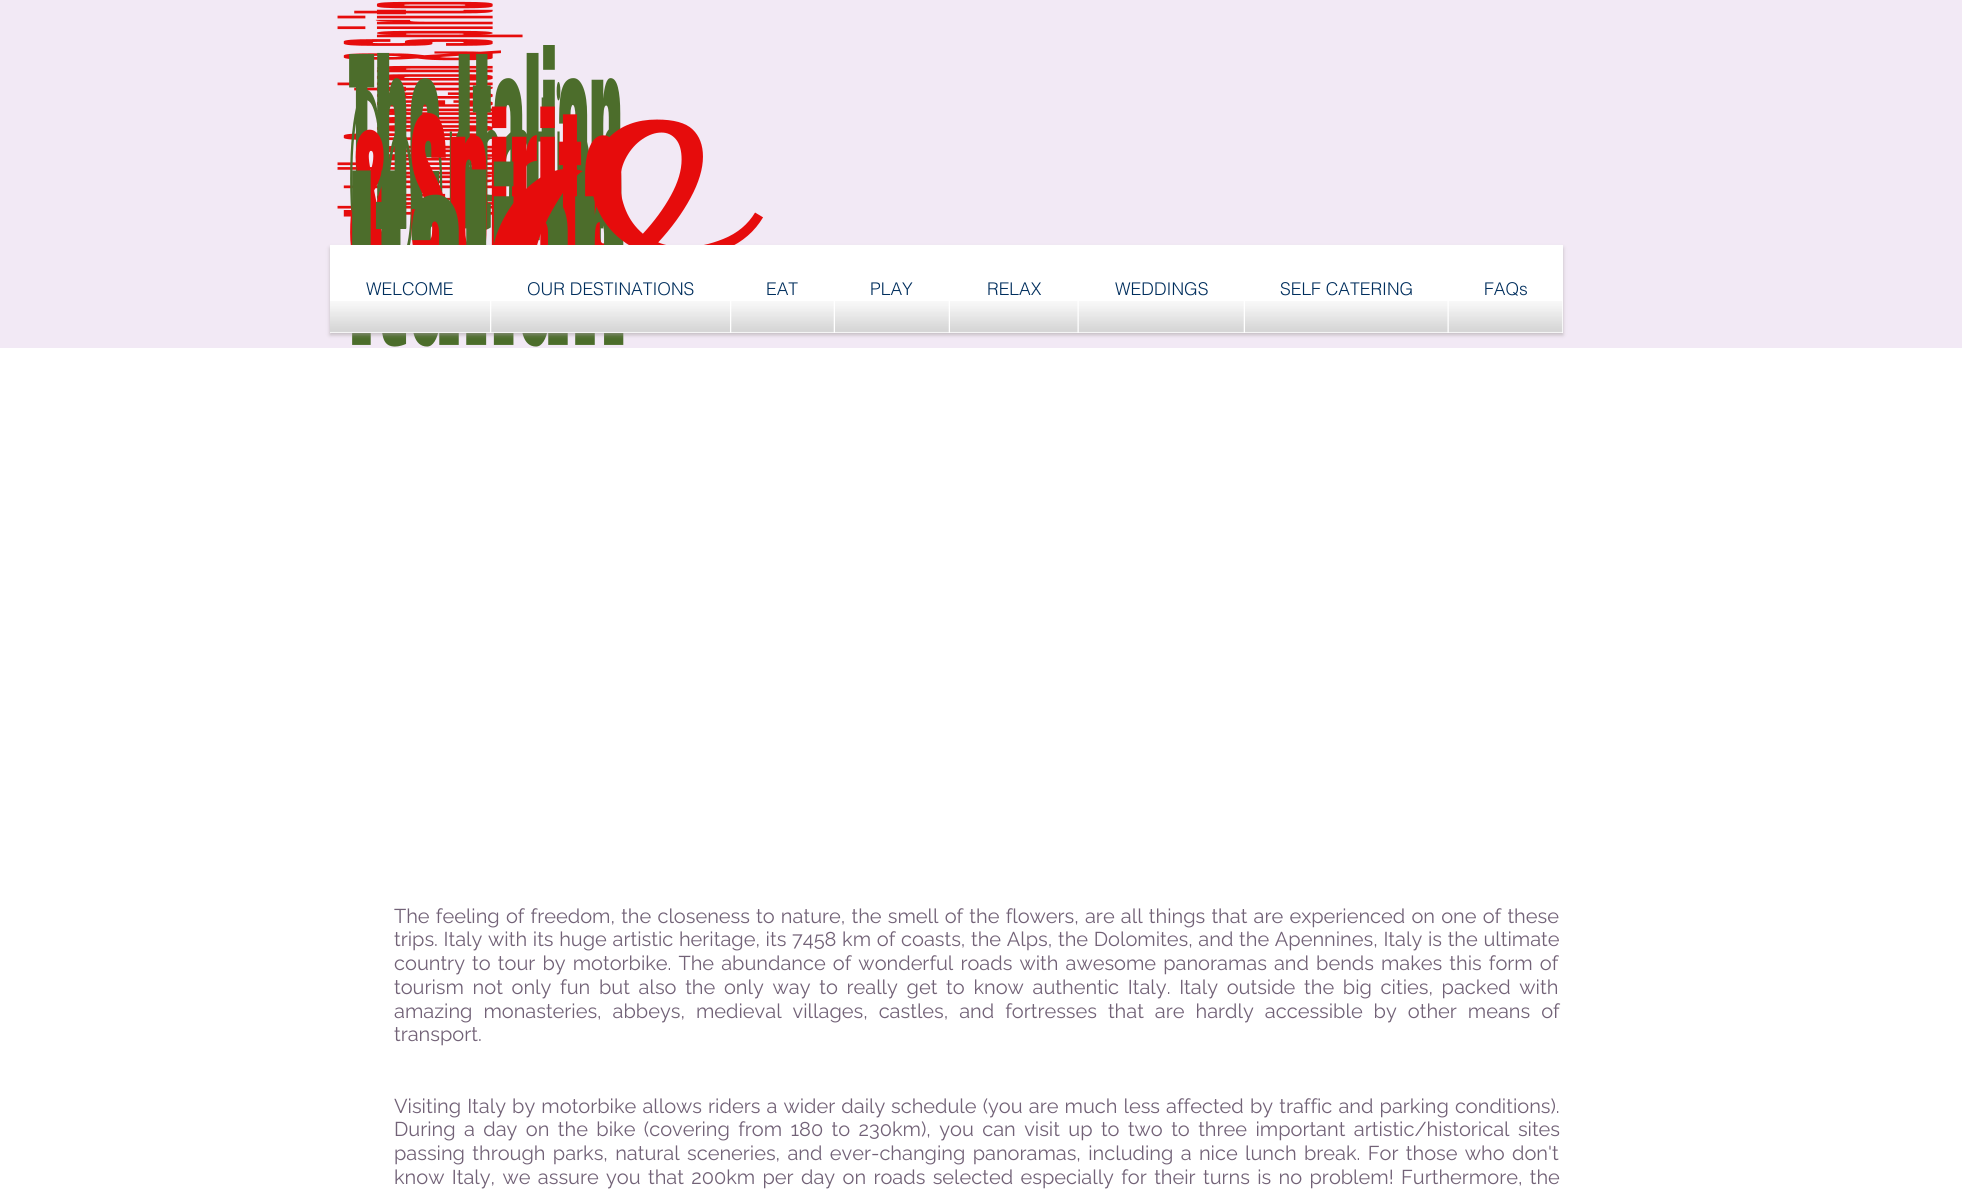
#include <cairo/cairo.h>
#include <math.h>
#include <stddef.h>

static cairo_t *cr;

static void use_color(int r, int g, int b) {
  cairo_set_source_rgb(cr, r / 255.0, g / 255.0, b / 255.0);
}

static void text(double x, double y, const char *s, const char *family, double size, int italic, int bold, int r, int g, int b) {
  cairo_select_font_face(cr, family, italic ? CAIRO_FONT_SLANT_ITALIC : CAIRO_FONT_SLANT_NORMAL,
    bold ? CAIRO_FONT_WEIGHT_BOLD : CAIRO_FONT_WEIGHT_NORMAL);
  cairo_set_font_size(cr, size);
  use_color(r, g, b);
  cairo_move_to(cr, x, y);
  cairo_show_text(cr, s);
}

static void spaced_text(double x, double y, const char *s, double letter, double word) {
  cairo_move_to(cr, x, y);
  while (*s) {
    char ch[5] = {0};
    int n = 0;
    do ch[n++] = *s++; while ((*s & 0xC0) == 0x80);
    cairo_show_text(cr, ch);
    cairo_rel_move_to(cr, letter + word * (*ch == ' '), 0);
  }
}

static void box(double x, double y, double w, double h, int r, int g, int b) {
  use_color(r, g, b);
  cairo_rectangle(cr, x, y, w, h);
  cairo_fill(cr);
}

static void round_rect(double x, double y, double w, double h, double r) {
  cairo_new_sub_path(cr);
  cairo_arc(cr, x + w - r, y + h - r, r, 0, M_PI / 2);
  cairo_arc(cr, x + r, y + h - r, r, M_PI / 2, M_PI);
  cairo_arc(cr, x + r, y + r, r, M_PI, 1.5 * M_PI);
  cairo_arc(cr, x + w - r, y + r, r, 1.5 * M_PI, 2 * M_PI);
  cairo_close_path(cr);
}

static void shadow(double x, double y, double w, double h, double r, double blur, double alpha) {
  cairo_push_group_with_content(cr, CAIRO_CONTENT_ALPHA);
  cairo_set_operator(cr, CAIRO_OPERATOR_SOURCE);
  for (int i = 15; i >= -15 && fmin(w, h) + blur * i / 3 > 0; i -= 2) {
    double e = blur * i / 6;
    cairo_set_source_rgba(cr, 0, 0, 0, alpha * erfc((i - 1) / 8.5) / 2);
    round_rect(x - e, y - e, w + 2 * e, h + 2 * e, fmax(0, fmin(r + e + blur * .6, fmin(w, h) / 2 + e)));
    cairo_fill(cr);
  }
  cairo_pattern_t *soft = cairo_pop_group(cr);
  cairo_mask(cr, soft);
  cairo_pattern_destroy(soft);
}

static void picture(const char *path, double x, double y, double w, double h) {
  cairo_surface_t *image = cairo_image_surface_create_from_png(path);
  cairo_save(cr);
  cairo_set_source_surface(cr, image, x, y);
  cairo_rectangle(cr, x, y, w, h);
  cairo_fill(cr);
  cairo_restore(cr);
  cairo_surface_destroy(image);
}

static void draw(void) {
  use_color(255, 255, 255);
  cairo_paint(cr);
  box(0, 0, 1962, 348, 242, 233, 245);
  picture("img_01.png", 337, 1, 426, 346);
  use_color(162, 158, 158);
  shadow(330, 248, 1233, 87, 0, 2, 0.6);
  box(330, 245, 1233, 88, 255, 255, 255);
  cairo_set_source_rgba(cr, 1, 1, 1, 0.03);
  cairo_rectangle(cr, 367, 282, 86, 4);
  cairo_fill(cr);
  picture("img_02.png", 330, 301, 160, 32);
  cairo_rectangle(cr, 529, 282, 164, 4);
  cairo_fill(cr);
  picture("img_03.png", 491, 301, 239, 32);
  cairo_rectangle(cr, 768, 282, 29, 4);
  cairo_fill(cr);
  picture("img_04.png", 731, 301, 103, 32);
  cairo_rectangle(cr, 872, 282, 40, 4);
  cairo_fill(cr);
  picture("img_05.png", 835, 301, 114, 32);
  cairo_rectangle(cr, 988, 282, 52, 4);
  cairo_fill(cr);
  picture("img_06.png", 950, 301, 128, 32);
  cairo_rectangle(cr, 1115, 282, 91, 4);
  cairo_fill(cr);
  picture("img_07.png", 1078, 301, 166, 32);
  cairo_rectangle(cr, 1281, 282, 130, 4);
  cairo_fill(cr);
  picture("img_08.png", 1245, 301, 203, 32);
  cairo_rectangle(cr, 1485, 282, 32, 4);
  cairo_fill(cr);
  picture("img_09.png", 1448, 301, 115, 32);
  text(366, 295, "WELCOME", "helvetica Light", 17.5, 0, 0, 0, 46, 93);
  text(527, 295, "OUR DESTINATIONS", "helvetica Light", 17.5, 0, 0, 0, 46, 93);
  text(766, 295, "EAT", "helvetica Light", 17.5, 0, 0, 0, 46, 93);
  text(870, 295, "PLAY", "helvetica Light", 17.5, 0, 0, 0, 46, 93);
  text(987, 295, "RELAX", "helvetica Light", 17.5, 0, 0, 0, 46, 93);
  text(1115, 295, "WEDDINGS", "helvetica Light", 17.5, 0, 0, 0, 46, 93);
  text(1280, 295, "SELF CATERING", "helvetica Light", 17.5, 0, 0, 0, 46, 93);
  text(1484, 295, "FAQs", "helvetica Light", 17.5, 0, 0, 0, 46, 93);
  cairo_select_font_face(cr, "Raleway", CAIRO_FONT_SLANT_NORMAL, CAIRO_FONT_WEIGHT_NORMAL);
  cairo_set_font_size(cr, 20);
  use_color(114, 98, 119);
  spaced_text(394, 923, "The feeling of freedom, the closeness to nature, the smell of the flowers, are all things that are experienced on one of these", 0, 1.1);
  spaced_text(394, 946, "trips. Italy with its huge artistic heritage, its 7458 km of coasts, the Alps, the Dolomites, and the Apennines, Italy is the ultimate", 0, 0.6);
  spaced_text(394, 970, "country to tour by motorbike. The abundance of wonderful roads with awesome panoramas and bends makes this form of", 0, 2);
  spaced_text(394, 994, "tourism not only fun but also the only way to really get to know authentic Italy. Italy outside the big cities, packed with", 0, 3.6);
  spaced_text(394, 1018, "amazing monasteries, abbeys, medieval villages, castles, and fortresses that are hardly accessible by other means of", 0, 5.9);
  text(394, 1041, "transport.", "Raleway", 20, 0, 0, 114, 98, 119);
  spaced_text(394, 1113, "Visiting Italy by motorbike allows riders a wider daily", 0, 1);
  spaced_text(891, 1113, "schedule (you are much less affected by traffic and parking conditions).", 0, 1);
  spaced_text(394, 1136, "During a day on the bike (covering from 180 to 230km), you can visit up to two to three important artistic/historical sites", 0, 3.3);
  spaced_text(394, 1160, "passing through parks, natural sceneries, and ever-changing panoramas, including a nice lunch break. For those who don't", 0, 2.25);
  spaced_text(394, 1184, "know Italy, we assure you that 200km per day on roads selected especially for their turns is no problem! Furthermore, the", 0, 2.25);
}

int main(void) {
  cairo_surface_t *surface = cairo_image_surface_create(CAIRO_FORMAT_RGB24, 1962, 1198);
  cr = cairo_create(surface);
  cairo_font_options_t *options = cairo_font_options_create();
  cairo_font_options_set_hint_metrics(options, CAIRO_HINT_METRICS_OFF);
  cairo_font_options_set_hint_style(options, CAIRO_HINT_STYLE_NONE);
  cairo_set_font_options(cr, options);
  cairo_set_miter_limit(cr, 4);
  draw();
  cairo_surface_write_to_png(surface, "out.png");
  cairo_font_options_destroy(options);
  cairo_destroy(cr);
  cairo_surface_destroy(surface);
  return 0;
}
